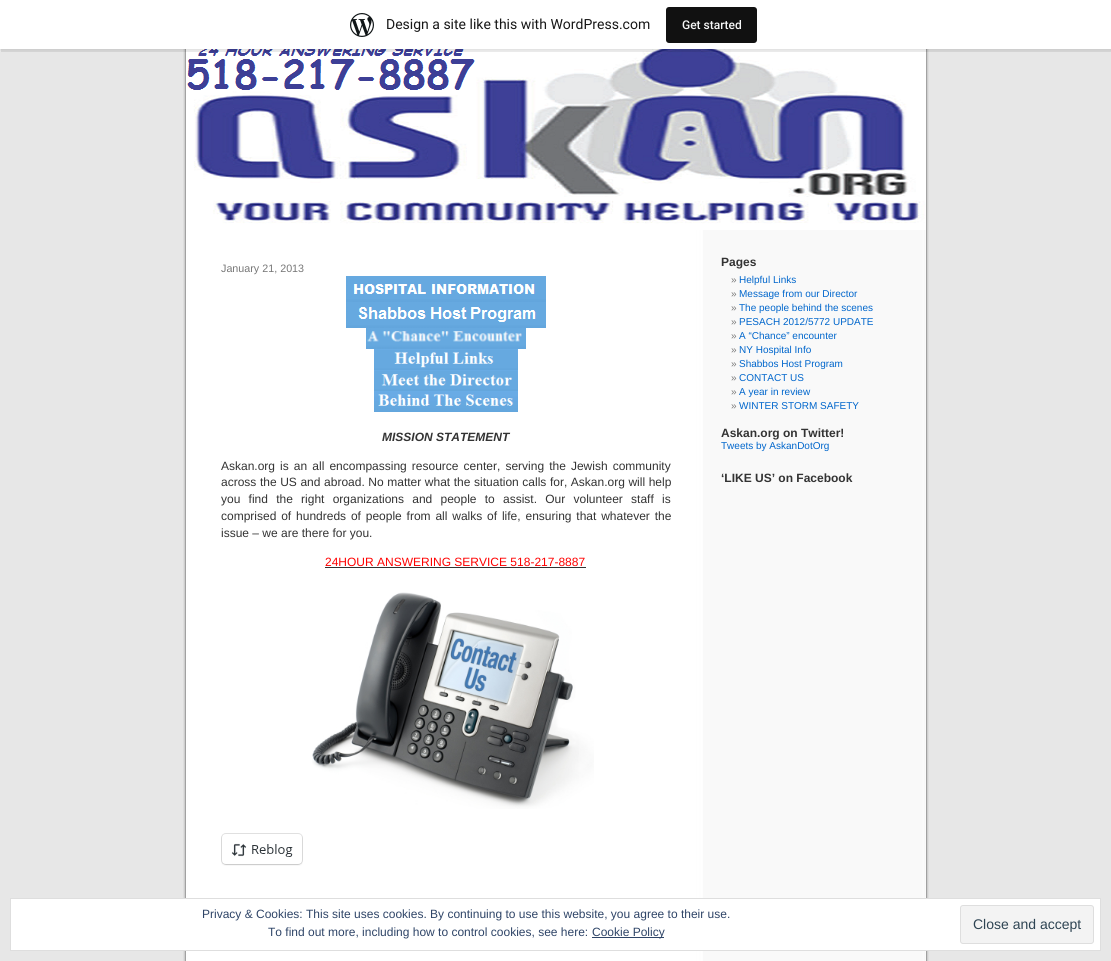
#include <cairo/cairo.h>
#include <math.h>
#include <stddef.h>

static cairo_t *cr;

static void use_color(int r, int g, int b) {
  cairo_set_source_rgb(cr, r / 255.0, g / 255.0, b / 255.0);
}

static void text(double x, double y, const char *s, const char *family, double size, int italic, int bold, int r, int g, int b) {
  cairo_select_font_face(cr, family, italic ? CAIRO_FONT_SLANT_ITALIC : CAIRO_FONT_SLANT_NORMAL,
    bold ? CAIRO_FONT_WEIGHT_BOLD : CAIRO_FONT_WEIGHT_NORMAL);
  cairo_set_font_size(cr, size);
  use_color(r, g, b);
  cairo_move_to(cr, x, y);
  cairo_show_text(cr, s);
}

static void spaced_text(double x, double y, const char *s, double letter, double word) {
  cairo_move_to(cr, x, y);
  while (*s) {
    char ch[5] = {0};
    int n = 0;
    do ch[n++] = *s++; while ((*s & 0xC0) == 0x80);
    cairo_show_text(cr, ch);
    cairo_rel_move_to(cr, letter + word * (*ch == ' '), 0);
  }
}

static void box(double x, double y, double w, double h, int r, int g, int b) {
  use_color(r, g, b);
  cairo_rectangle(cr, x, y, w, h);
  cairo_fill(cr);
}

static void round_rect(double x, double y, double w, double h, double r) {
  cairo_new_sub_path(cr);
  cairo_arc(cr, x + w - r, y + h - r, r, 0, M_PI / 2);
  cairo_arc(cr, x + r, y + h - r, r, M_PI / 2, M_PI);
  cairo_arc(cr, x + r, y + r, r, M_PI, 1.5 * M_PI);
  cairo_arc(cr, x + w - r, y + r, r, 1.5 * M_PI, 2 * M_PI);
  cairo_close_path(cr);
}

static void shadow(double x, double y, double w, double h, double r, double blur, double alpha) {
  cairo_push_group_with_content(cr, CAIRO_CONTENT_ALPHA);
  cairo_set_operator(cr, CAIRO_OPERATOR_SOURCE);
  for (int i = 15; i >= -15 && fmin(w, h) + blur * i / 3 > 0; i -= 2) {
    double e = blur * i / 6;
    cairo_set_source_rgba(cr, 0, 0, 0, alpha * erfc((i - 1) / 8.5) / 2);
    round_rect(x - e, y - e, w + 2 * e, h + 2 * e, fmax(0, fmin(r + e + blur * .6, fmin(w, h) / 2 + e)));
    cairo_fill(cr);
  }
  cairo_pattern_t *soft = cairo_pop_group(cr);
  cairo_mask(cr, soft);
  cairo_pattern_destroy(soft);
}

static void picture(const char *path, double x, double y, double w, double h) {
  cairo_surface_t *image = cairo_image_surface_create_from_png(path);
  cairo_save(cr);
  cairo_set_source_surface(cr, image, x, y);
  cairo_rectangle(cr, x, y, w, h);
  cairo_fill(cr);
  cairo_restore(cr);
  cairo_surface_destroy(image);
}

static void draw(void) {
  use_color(231, 231, 231);
  cairo_paint(cr);
  picture("img_03.png", 183, 49, 746, 181);
  picture("img_04.png", 186, 49, 740, 181);
  use_color(0, 0, 0);
  shadow(0, 1, 1111, 49, 0, 1, 0.05);
  cairo_set_source_rgba(cr, 0, 0, 0, 0.08);
  cairo_new_path(cr);
  cairo_move_to(cr, 1, 49);
  cairo_line_to(cr, 1, 52);
  cairo_line_to(cr, 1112, 52);
  cairo_line_to(cr, 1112, 3);
  cairo_line_to(cr, 1111, 3);
  cairo_line_to(cr, 1111, 49);
  cairo_close_path(cr);
  cairo_fill(cr);
  box(0, 0, 1111, 49, 255, 255, 255);
  picture("img_01.png", 350, 13, 24, 24);
  use_color(17, 17, 17);
  round_rect(666, 7, 91, 36, 3);
  cairo_fill(cr);
  picture("img_02.png", 183, 230, 746, 731);
  picture("img_05.png", 346, 276, 200, 26);
  picture("img_06.png", 346, 302, 200, 26);
  picture("img_07.png", 366, 328, 160, 21);
  picture("img_08.png", 374, 349, 144, 21);
  picture("img_09.png", 374, 370, 144, 21);
  picture("img_10.png", 374, 391, 144, 21);
  box(325, 567, 261, 1, 51, 51, 51);
  picture("img_11.png", 312, 592, 282, 217);
  picture("img_12.png", 221, 833, 82, 33);
  use_color(255, 255, 255);
  cairo_rectangle(cr, 10.5, 898.5, 1090, 52);
  cairo_fill_preserve(cr);
  use_color(222, 222, 222);
  cairo_set_line_width(cr, 1);
  cairo_stroke(cr);
  box(592, 937, 72, 1, 46, 68, 103);
  use_color(243, 243, 243);
  round_rect(960.5, 905.5, 133, 38, 2.5);
  cairo_fill_preserve(cr);
  use_color(222, 222, 222);
  cairo_stroke(cr);
  text(386, 29, "Design a site like this with WordPress.com", "Roboto", 14, 0, 0, 23, 23, 23);
  text(682, 29, "Get started", "Roboto Medium", 12, 0, 0, 246, 247, 247);
  text(221, 272, "January 21, 2013", "Liberation Sans", 10.75, 0, 0, 119, 119, 119);
  text(382, 441, "MISSION STATEMENT", "Liberation Sans", 12, 1, 1, 51, 51, 51);
  cairo_select_font_face(cr, "Liberation Sans", CAIRO_FONT_SLANT_NORMAL, CAIRO_FONT_WEIGHT_NORMAL);
  spaced_text(221, 470, "Askan.org is an all encompassing resource center, serving the Jewish community", 0, 1.75);
  spaced_text(221, 486, "across the US and abroad. No matter what the situation calls for, Askan.org will help", 0, 0.25);
  spaced_text(221, 503, "you find the right organizations and people to assist. Our volunteer staff is", 0, 4.9);
  spaced_text(221, 520, "comprised of hundreds of people from all walks of life, ensuring that whatever the", 0, 1.5);
  text(221, 537, "issue – we are there for you.", "Liberation Sans", 12, 0, 0, 51, 51, 51);
  text(325, 566, "24HOUR ANSWERING SERVICE 518-217-8887", "Liberation Sans", 12, 0, 0, 255, 0, 0);
  text(721, 266, "Pages", "Liberation Sans", 12, 0, 1, 51, 51, 51);
  text(731, 283, "»", "Liberation Sans", 10, 0, 0, 119, 119, 119);
  text(739, 283, "Helpful Links", "Liberation Sans", 10, 0, 0, 0, 102, 204);
  text(731, 297, "»", "Liberation Sans", 10, 0, 0, 119, 119, 119);
  text(739, 297, "Message from our Director", "Liberation Sans", 10, 0, 0, 0, 102, 204);
  text(731, 311, "»", "Liberation Sans", 10, 0, 0, 119, 119, 119);
  text(739, 311, "The people behind the scenes", "Liberation Sans", 10, 0, 0, 0, 102, 204);
  text(731, 325, "»", "Liberation Sans", 10, 0, 0, 119, 119, 119);
  text(739, 325, "PESACH 2012/5772 UPDATE", "Liberation Sans", 10, 0, 0, 0, 102, 204);
  text(731, 339, "»", "Liberation Sans", 10, 0, 0, 119, 119, 119);
  text(739, 339, "A “Chance” encounter", "Liberation Sans", 10, 0, 0, 0, 102, 204);
  text(731, 353, "»", "Liberation Sans", 10, 0, 0, 119, 119, 119);
  text(739, 353, "NY Hospital Info", "Liberation Sans", 10, 0, 0, 0, 102, 204);
  text(731, 367, "»", "Liberation Sans", 10, 0, 0, 119, 119, 119);
  text(739, 367, "Shabbos Host Program", "Liberation Sans", 10, 0, 0, 0, 102, 204);
  text(731, 381, "»", "Liberation Sans", 10, 0, 0, 119, 119, 119);
  text(739, 381, "CONTACT US", "Liberation Sans", 10, 0, 0, 0, 102, 204);
  text(731, 395, "»", "Liberation Sans", 10, 0, 0, 119, 119, 119);
  text(739, 395, "A year in review", "Liberation Sans", 10, 0, 0, 0, 102, 204);
  text(731, 409, "»", "Liberation Sans", 10, 0, 0, 119, 119, 119);
  text(739, 409, "WINTER STORM SAFETY", "Liberation Sans", 10, 0, 0, 0, 102, 204);
  text(721, 437, "Askan.org on Twitter!", "Liberation Sans", 12, 0, 1, 51, 51, 51);
  text(721, 449, "Tweets by AskanDotOrg", "Liberation Sans", 10, 0, 0, 0, 102, 204);
  text(721, 482, "‘LIKE US’ on Facebook", "Liberation Sans", 12, 0, 1, 51, 51, 51);
  text(202, 918, "Privacy & Cookies: This site uses cookies. By continuing to use this website, you agree to their use.", "Liberation Sans", 12, 0, 0, 46, 68, 103);
  text(268, 936, "To find out more, including how to control cookies, see here:", "Liberation Sans", 12, 0, 0, 46, 68, 103);
  text(592, 936, "Cookie Policy", "Liberation Sans", 12, 0, 0, 46, 68, 103);
  text(973, 929, "Close and accept", "Liberation Sans", 14, 0, 0, 46, 68, 83);
}

int main(void) {
  cairo_surface_t *surface = cairo_image_surface_create(CAIRO_FORMAT_RGB24, 1111, 961);
  cr = cairo_create(surface);
  cairo_font_options_t *options = cairo_font_options_create();
  cairo_font_options_set_hint_metrics(options, CAIRO_HINT_METRICS_OFF);
  cairo_font_options_set_hint_style(options, CAIRO_HINT_STYLE_NONE);
  cairo_set_font_options(cr, options);
  cairo_set_miter_limit(cr, 4);
  draw();
  cairo_surface_write_to_png(surface, "out.png");
  cairo_font_options_destroy(options);
  cairo_destroy(cr);
  cairo_surface_destroy(surface);
  return 0;
}
